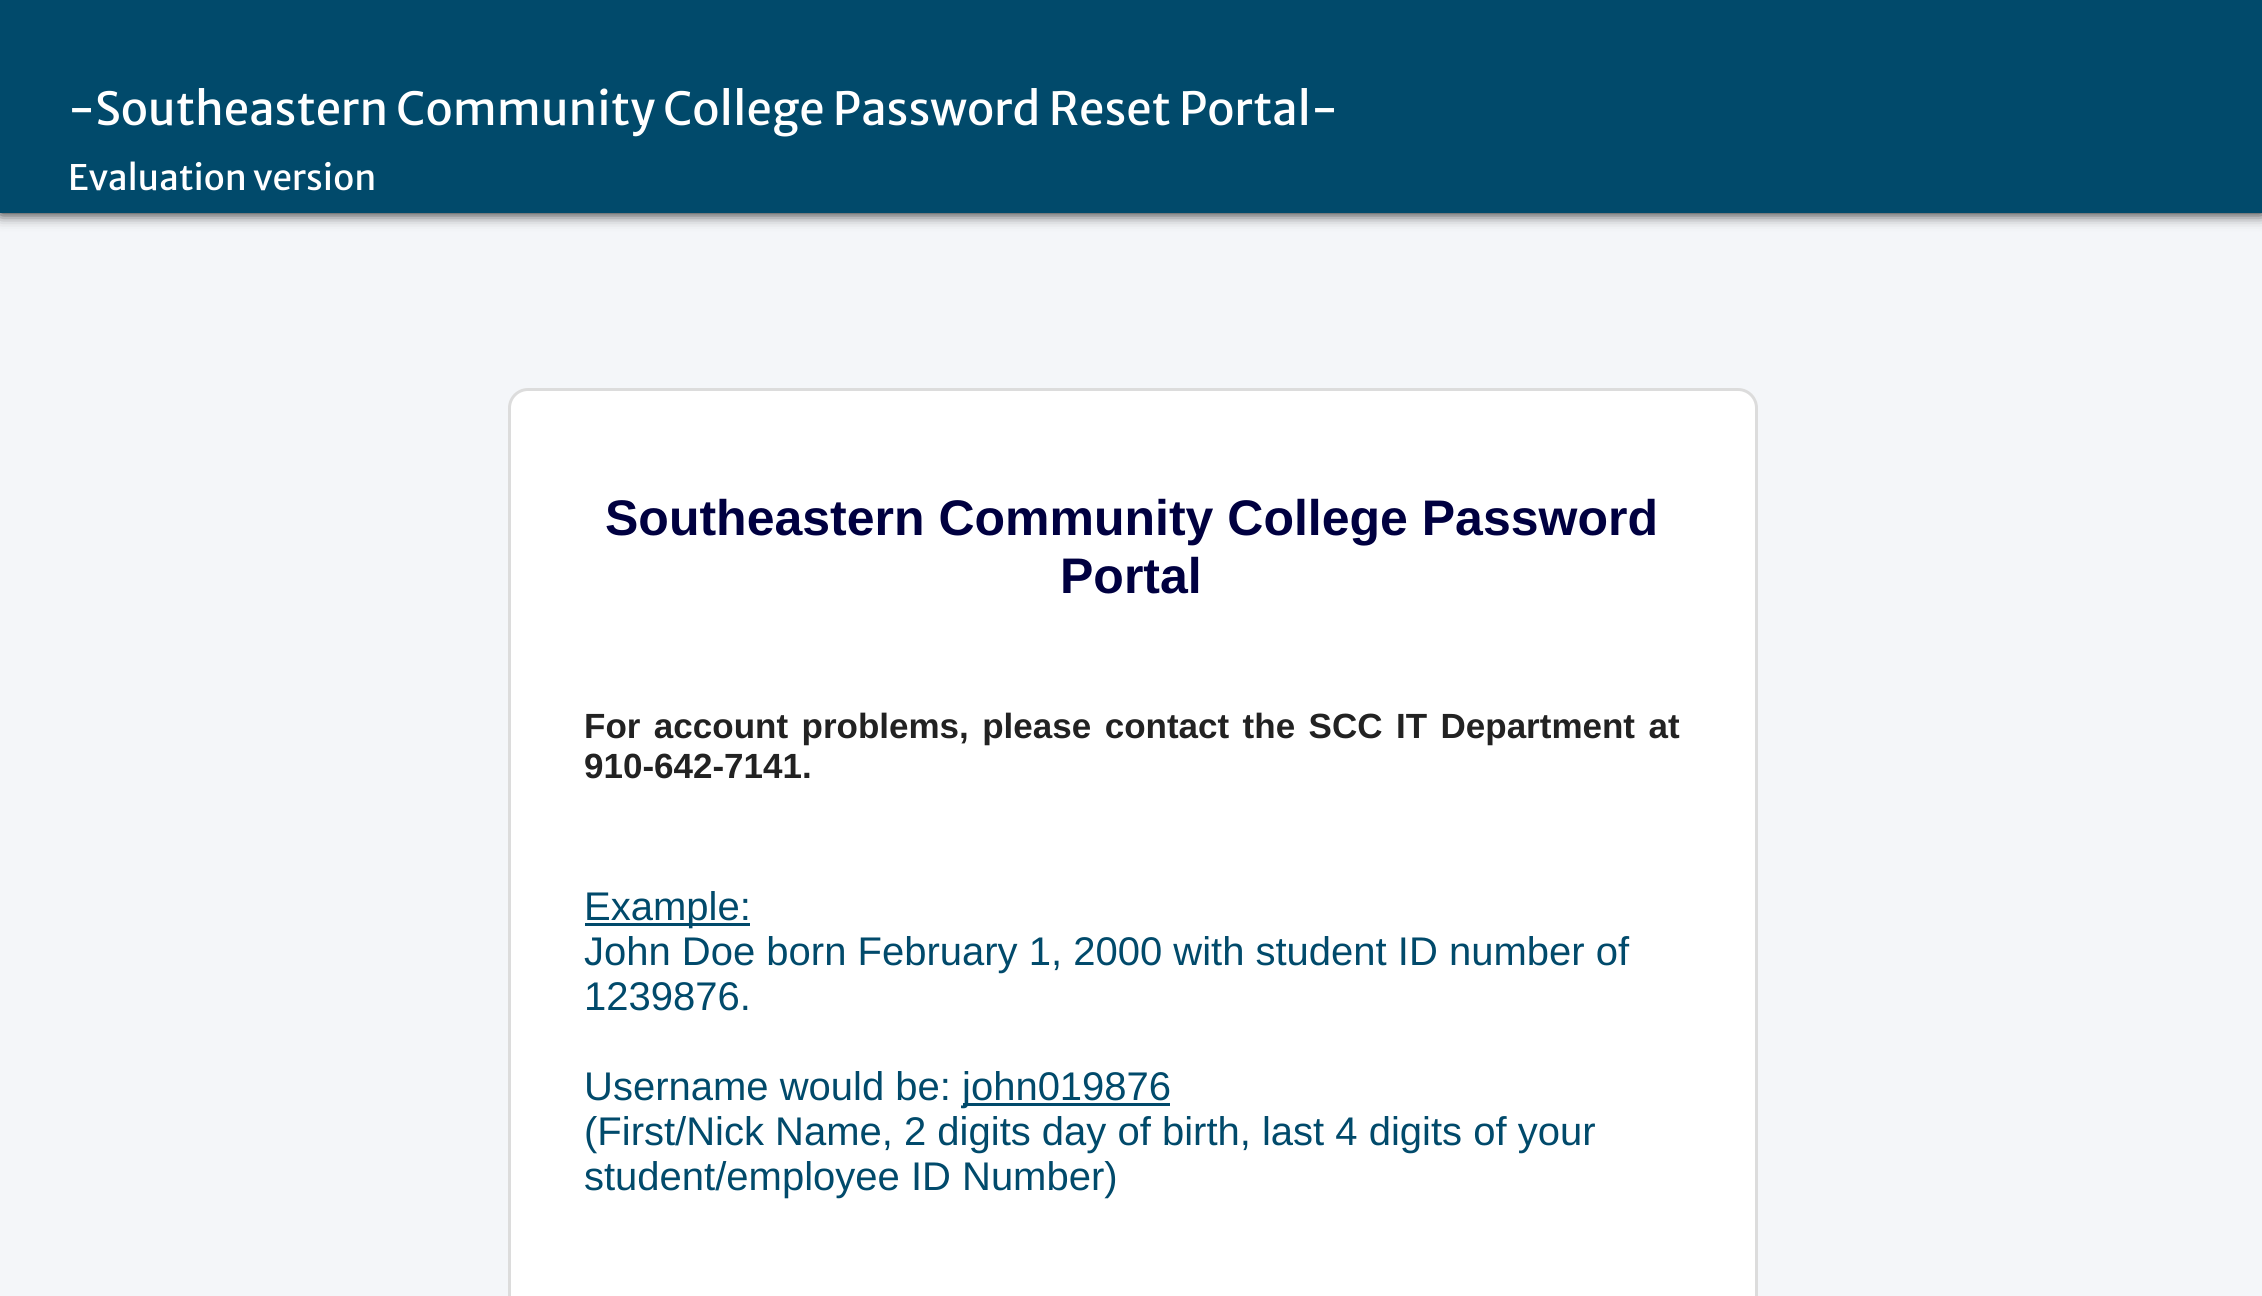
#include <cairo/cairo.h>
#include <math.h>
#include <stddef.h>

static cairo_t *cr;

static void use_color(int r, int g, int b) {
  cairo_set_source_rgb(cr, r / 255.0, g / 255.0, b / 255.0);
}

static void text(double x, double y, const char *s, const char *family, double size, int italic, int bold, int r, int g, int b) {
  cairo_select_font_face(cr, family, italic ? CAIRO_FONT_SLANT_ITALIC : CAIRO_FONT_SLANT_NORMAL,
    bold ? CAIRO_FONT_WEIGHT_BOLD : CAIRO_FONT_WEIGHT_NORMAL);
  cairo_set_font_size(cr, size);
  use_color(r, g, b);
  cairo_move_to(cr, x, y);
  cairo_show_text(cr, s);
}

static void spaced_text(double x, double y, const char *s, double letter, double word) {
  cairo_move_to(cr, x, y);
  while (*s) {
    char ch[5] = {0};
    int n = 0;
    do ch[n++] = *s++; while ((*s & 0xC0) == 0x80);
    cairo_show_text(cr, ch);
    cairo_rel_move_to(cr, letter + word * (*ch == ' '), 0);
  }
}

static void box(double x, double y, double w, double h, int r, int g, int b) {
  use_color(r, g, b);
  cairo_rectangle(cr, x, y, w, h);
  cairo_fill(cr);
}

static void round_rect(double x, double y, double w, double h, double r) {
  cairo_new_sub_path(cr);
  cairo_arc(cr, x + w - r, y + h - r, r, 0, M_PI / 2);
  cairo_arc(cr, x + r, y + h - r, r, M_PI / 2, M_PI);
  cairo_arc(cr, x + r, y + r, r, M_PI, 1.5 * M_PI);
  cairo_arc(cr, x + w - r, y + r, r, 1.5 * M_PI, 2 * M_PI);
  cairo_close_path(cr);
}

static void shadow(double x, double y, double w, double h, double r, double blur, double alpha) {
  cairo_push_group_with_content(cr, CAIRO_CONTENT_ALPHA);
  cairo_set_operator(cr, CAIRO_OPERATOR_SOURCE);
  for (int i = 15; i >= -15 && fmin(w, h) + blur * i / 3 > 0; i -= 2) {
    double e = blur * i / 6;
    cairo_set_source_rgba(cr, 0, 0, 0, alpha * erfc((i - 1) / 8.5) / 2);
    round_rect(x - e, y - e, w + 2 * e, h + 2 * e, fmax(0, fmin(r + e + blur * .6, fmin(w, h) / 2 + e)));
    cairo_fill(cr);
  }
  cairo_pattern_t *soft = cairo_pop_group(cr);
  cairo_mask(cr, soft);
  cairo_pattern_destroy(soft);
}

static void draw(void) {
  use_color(244, 246, 249);
  cairo_paint(cr);
  use_color(0, 0, 0);
  shadow(0, 0, 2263, 213, 0, 7.5, 1);
  box(0, 0, 2262, 213, 1, 74, 107);
  use_color(255, 255, 255);
  round_rect(508, 388, 1250, 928, 20);
  cairo_fill(cr);
  round_rect(509.5, 389.5, 1247, 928, 18.5);
  cairo_set_source_rgba(cr, 0.502, 0.502, 0.502, 0.27);
  cairo_set_line_width(cr, 3);
  cairo_stroke(cr);
  box(585, 923, 165, 3, 1, 74, 107);
  box(963, 1103, 207, 3, 1, 74, 107);
  text(68, 125, "-Southeastern Community College Password Reset Portal-", "Merriweather Sans", 45.5, 0, 0, 255, 255, 255);
  text(68, 190, "Evaluation version", "Merriweather Sans", 35, 0, 0, 255, 255, 255);
  text(605, 535, "Southeastern Community College Password", "Liberation Sans", 50, 0, 1, 0, 0, 64);
  text(1060, 593, "Portal", "Liberation Sans", 50, 0, 1, 0, 0, 64);
  cairo_set_font_size(cr, 35);
  use_color(34, 34, 34);
  spaced_text(584, 738, "For account problems, please contact the SCC IT Department at", 0, 3.75);
  text(584, 778, "910-642-7141.", "Liberation Sans", 35, 0, 1, 34, 34, 34);
  text(584, 920, "Example:", "Liberation Sans", 40, 0, 0, 1, 74, 107);
  text(584, 965, "John Doe born February 1, 2000 with student ID number of", "Liberation Sans", 40, 0, 0, 1, 74, 107);
  text(584, 1010, "1239876.", "Liberation Sans", 40, 0, 0, 1, 74, 107);
  text(584, 1100, "Username would be:", "Liberation Sans", 40, 0, 0, 1, 74, 107);
  text(962, 1100, "john019876", "Liberation Sans", 40, 0, 0, 1, 74, 107);
  text(584, 1145, "(First/Nick Name, 2 digits day of birth, last 4 digits of your", "Liberation Sans", 40, 0, 0, 1, 74, 107);
  text(584, 1190, "student/employee ID Number)", "Liberation Sans", 40, 0, 0, 1, 74, 107);
}

int main(void) {
  cairo_surface_t *surface = cairo_image_surface_create(CAIRO_FORMAT_RGB24, 2262, 1296);
  cr = cairo_create(surface);
  cairo_font_options_t *options = cairo_font_options_create();
  cairo_font_options_set_hint_metrics(options, CAIRO_HINT_METRICS_OFF);
  cairo_font_options_set_hint_style(options, CAIRO_HINT_STYLE_NONE);
  cairo_set_font_options(cr, options);
  cairo_set_miter_limit(cr, 4);
  draw();
  cairo_surface_write_to_png(surface, "out.png");
  cairo_font_options_destroy(options);
  cairo_destroy(cr);
  cairo_surface_destroy(surface);
  return 0;
}
